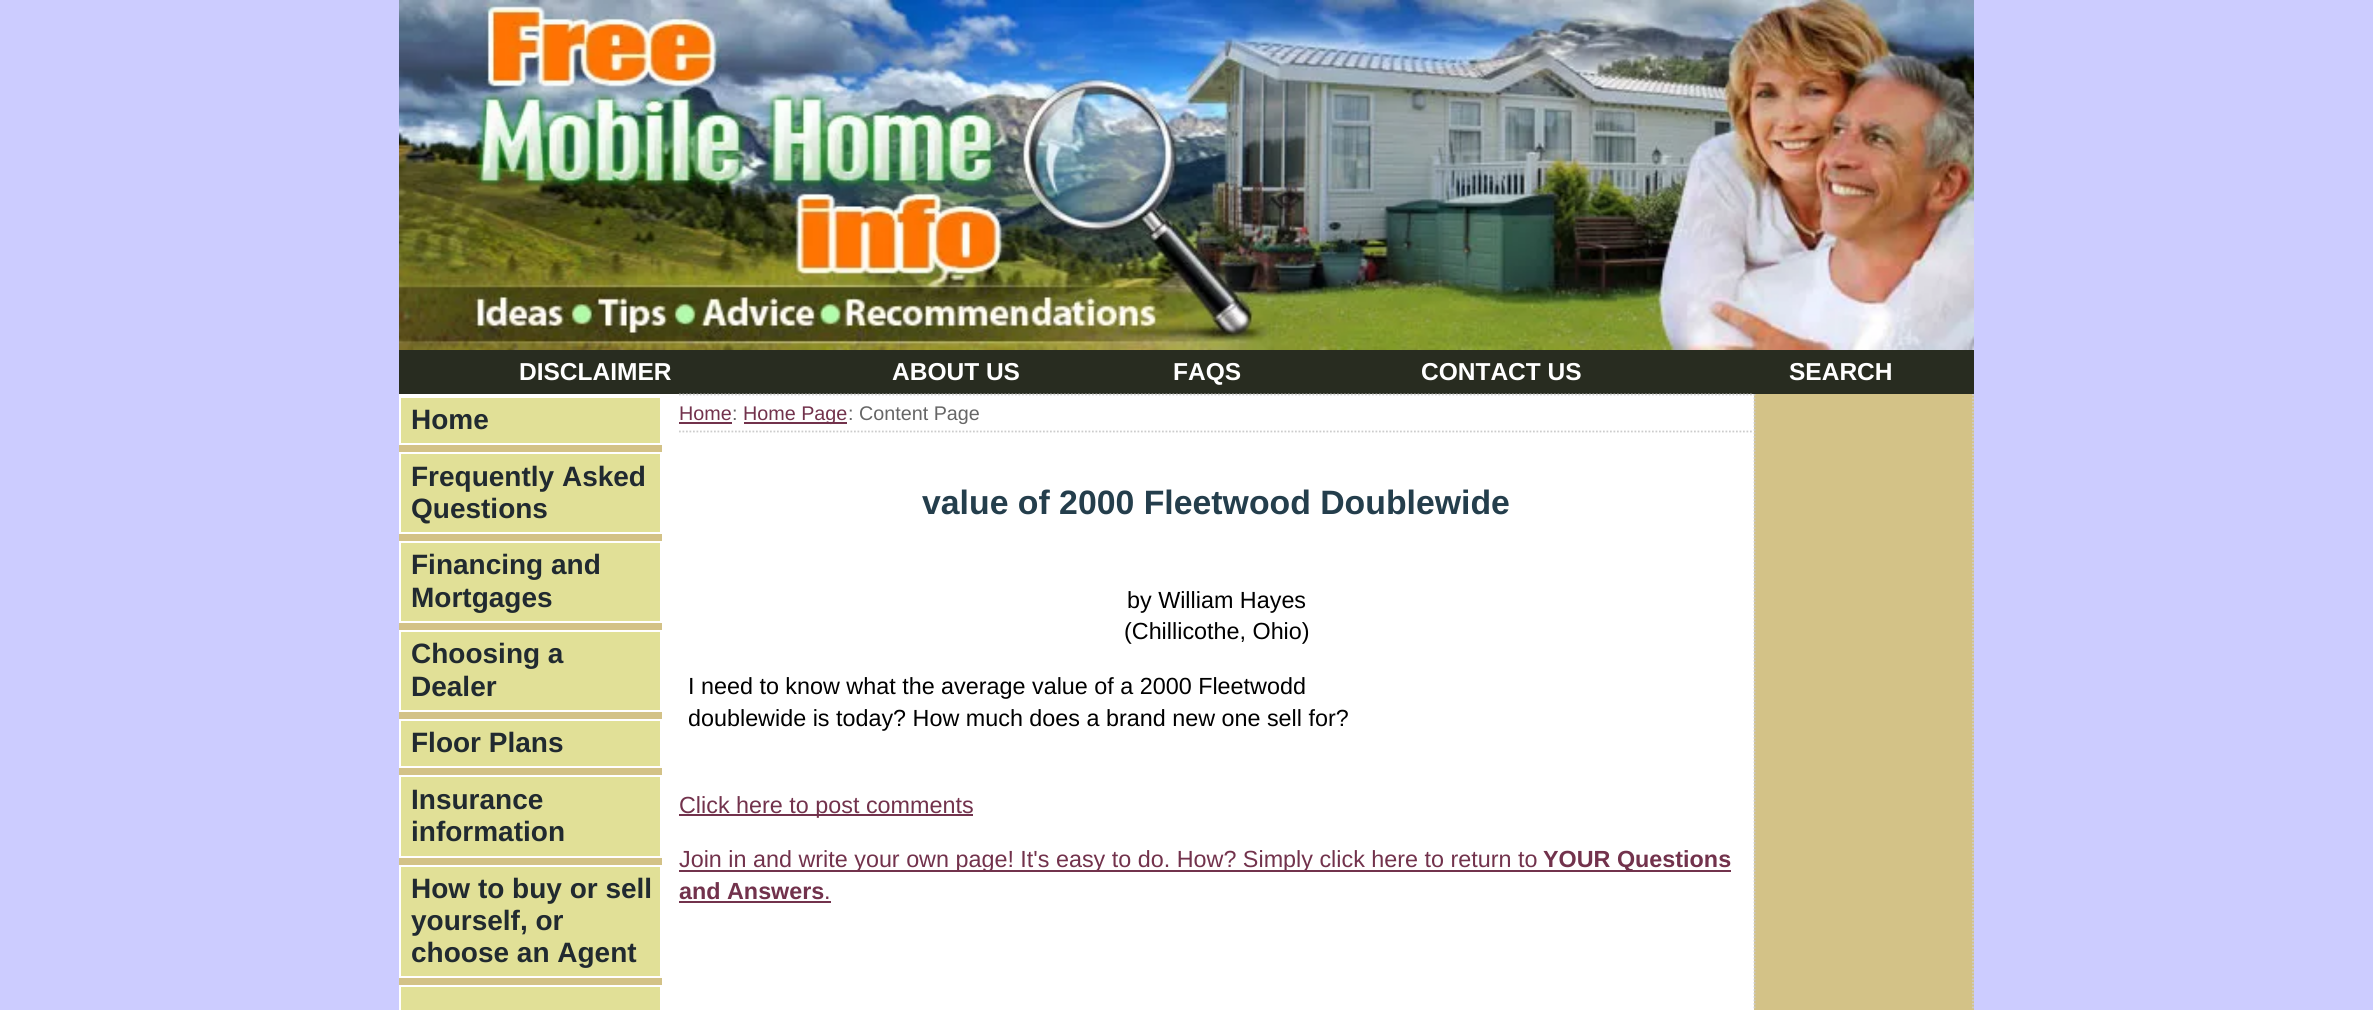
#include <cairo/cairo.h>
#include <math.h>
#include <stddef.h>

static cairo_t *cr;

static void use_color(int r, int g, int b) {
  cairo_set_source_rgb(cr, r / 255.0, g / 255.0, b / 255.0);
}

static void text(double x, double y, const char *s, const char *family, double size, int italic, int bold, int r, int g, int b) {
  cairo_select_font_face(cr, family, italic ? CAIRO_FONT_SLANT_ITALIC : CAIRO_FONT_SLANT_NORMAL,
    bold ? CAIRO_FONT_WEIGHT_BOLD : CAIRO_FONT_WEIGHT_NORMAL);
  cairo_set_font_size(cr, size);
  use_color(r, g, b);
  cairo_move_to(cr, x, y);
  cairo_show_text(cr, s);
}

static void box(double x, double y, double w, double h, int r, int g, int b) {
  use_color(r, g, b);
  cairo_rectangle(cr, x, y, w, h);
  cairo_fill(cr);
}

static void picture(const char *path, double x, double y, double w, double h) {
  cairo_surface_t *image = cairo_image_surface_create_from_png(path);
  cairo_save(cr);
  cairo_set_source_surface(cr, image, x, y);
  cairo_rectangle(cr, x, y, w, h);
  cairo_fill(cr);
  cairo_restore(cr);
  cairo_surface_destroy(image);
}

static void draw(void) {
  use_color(204, 204, 255);
  cairo_paint(cr);
  picture("img_01.png", 399, 0, 1575, 350);
  box(399, 394, 1355, 616, 255, 255, 255);
  box(399, 350, 1575, 44, 40, 44, 32);
  box(399, 445, 263, 540, 211, 194, 135);
  box(401, 398, 259, 45, 225, 224, 151);
  cairo_rectangle(cr, 400, 453, 261, 80);
  cairo_fill_preserve(cr);
  use_color(255, 255, 255);
  cairo_stroke(cr);
  use_color(225, 224, 151);
  cairo_rectangle(cr, 400, 542, 261, 80);
  cairo_fill_preserve(cr);
  use_color(255, 255, 255);
  cairo_stroke(cr);
  use_color(225, 224, 151);
  cairo_rectangle(cr, 400, 631, 261, 80);
  cairo_fill_preserve(cr);
  use_color(255, 255, 255);
  cairo_stroke(cr);
  use_color(225, 224, 151);
  cairo_rectangle(cr, 400, 720, 261, 47);
  cairo_fill_preserve(cr);
  use_color(255, 255, 255);
  cairo_stroke(cr);
  use_color(225, 224, 151);
  cairo_rectangle(cr, 400, 776, 261, 81);
  cairo_fill_preserve(cr);
  use_color(255, 255, 255);
  cairo_stroke(cr);
  use_color(225, 224, 151);
  cairo_rectangle(cr, 400, 866, 261, 111);
  cairo_fill_preserve(cr);
  use_color(255, 255, 255);
  cairo_stroke(cr);
  box(401, 987, 259, 23, 225, 224, 151);
  cairo_new_path(cr);
  cairo_move_to(cr, 679, 394.5);
  cairo_line_to(cr, 1753.5, 394.5);
  use_color(204, 204, 204);
  cairo_set_line_width(cr, 1.8);
  cairo_set_dash(cr, (double[]){1.75, 1.75}, 2, 0);
  cairo_stroke(cr);
  cairo_new_path(cr);
  cairo_move_to(cr, 679, 431.5);
  cairo_line_to(cr, 1753.5, 431.5);
  cairo_stroke(cr);
  box(679, 422, 53, 2, 114, 50, 76);
  box(744, 422, 103, 2, 114, 50, 76);
  box(679, 814, 294, 2, 114, 50, 76);
  box(679, 870, 1052, 2, 114, 50, 76);
  box(679, 901, 152, 2, 114, 50, 76);
  box(1754, 394, 220, 616, 211, 194, 135);
  cairo_new_path(cr);
  cairo_move_to(cr, 1973, 394);
  cairo_line_to(cr, 1973, 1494.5);
  use_color(204, 204, 204);
  cairo_stroke(cr);
  cairo_new_path(cr);
  cairo_move_to(cr, 1754.5, 394);
  cairo_line_to(cr, 1754.5, 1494.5);
  cairo_stroke(cr);
  text(519, 380, "DISCLAIMER", "Liberation Sans", 24.5, 0, 1, 255, 255, 255);
  text(892, 380, "ABOUT US", "Liberation Sans", 24.5, 0, 1, 255, 255, 255);
  text(1173, 380, "FAQS", "Liberation Sans", 24.5, 0, 1, 255, 255, 255);
  text(1421, 380, "CONTACT US", "Liberation Sans", 24.5, 0, 1, 255, 255, 255);
  text(1789, 380, "SEARCH", "Liberation Sans", 24.5, 0, 1, 255, 255, 255);
  text(411, 429, "Home", "Liberation Sans", 28, 0, 1, 33, 42, 48);
  text(411, 486, "Frequently Asked", "Liberation Sans", 28, 0, 1, 33, 42, 48);
  text(411, 518, "Questions", "Liberation Sans", 28, 0, 1, 33, 42, 48);
  text(411, 574, "Financing and", "Liberation Sans", 28, 0, 1, 33, 42, 48);
  text(411, 607, "Mortgages", "Liberation Sans", 28, 0, 1, 33, 42, 48);
  text(411, 663, "Choosing a", "Liberation Sans", 28, 0, 1, 33, 42, 48);
  text(411, 696, "Dealer", "Liberation Sans", 28, 0, 1, 33, 42, 48);
  text(411, 752, "Floor Plans", "Liberation Sans", 28, 0, 1, 33, 42, 48);
  text(411, 809, "Insurance", "Liberation Sans", 28, 0, 1, 33, 42, 48);
  text(411, 841, "information", "Liberation Sans", 28, 0, 1, 33, 42, 48);
  text(411, 898, "How to buy or sell", "Liberation Sans", 28, 0, 1, 33, 42, 48);
  text(411, 930, "yourself, or", "Liberation Sans", 28, 0, 1, 33, 42, 48);
  text(411, 962, "choose an Agent", "Liberation Sans", 28, 0, 1, 33, 42, 48);
  text(679, 420, "Home", "Liberation Sans", 19.75, 0, 0, 114, 50, 76);
  text(732, 420, ":", "Liberation Sans", 19.75, 0, 0, 102, 102, 102);
  text(743, 420, "Home Page", "Liberation Sans", 19.75, 0, 0, 114, 50, 76);
  text(848, 420, ": Content Page", "Liberation Sans", 19.75, 0, 0, 102, 102, 102);
  text(922, 514, "value of 2000 Fleetwood Doublewide", "Liberation Sans", 33.8, 0, 1, 36, 62, 76);
  text(1127, 608, "by William Hayes", "Liberation Sans", 23.35, 0, 0, 0, 0, 0);
  text(1124, 639, "(Chillicothe, Ohio)", "Liberation Sans", 23.35, 0, 0, 0, 0, 0);
  text(688, 694, "I need to know what the average value of a 2000 Fleetwodd", "Liberation Sans", 23.35, 0, 0, 0, 0, 0);
  text(688, 726, "doublewide is today? How much does a brand new one sell for?", "Liberation Sans", 23.35, 0, 0, 0, 0, 0);
  text(679, 813, "Click here to post comments", "Liberation Sans", 23.35, 0, 0, 114, 50, 76);
  text(679, 867, "Join in and write your own page! It's easy to do. How? Simply click here to return to", "Liberation Sans", 23.35, 0, 0, 114, 50, 76);
  text(1543, 867, "YOUR Questions", "Liberation Sans", 23.35, 0, 1, 114, 50, 76);
  text(679, 899, "and Answers", "Liberation Sans", 23.35, 0, 1, 114, 50, 76);
  text(824, 899, ".", "Liberation Sans", 23.35, 0, 0, 114, 50, 76);
}

int main(void) {
  cairo_surface_t *surface = cairo_image_surface_create(CAIRO_FORMAT_RGB24, 2373, 1010);
  cr = cairo_create(surface);
  cairo_font_options_t *options = cairo_font_options_create();
  cairo_font_options_set_hint_metrics(options, CAIRO_HINT_METRICS_OFF);
  cairo_font_options_set_hint_style(options, CAIRO_HINT_STYLE_NONE);
  cairo_set_font_options(cr, options);
  cairo_set_miter_limit(cr, 4);
  draw();
  cairo_surface_write_to_png(surface, "out.png");
  cairo_font_options_destroy(options);
  cairo_destroy(cr);
  cairo_surface_destroy(surface);
  return 0;
}
